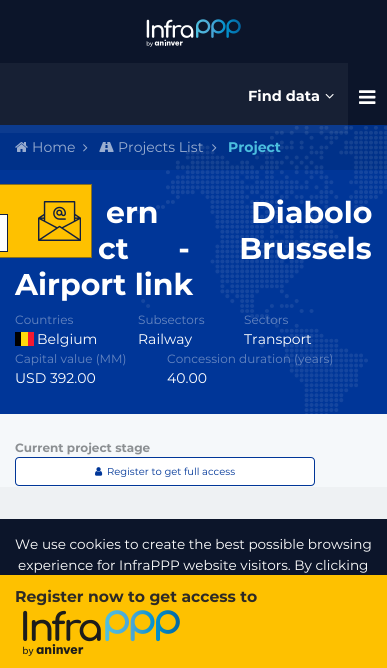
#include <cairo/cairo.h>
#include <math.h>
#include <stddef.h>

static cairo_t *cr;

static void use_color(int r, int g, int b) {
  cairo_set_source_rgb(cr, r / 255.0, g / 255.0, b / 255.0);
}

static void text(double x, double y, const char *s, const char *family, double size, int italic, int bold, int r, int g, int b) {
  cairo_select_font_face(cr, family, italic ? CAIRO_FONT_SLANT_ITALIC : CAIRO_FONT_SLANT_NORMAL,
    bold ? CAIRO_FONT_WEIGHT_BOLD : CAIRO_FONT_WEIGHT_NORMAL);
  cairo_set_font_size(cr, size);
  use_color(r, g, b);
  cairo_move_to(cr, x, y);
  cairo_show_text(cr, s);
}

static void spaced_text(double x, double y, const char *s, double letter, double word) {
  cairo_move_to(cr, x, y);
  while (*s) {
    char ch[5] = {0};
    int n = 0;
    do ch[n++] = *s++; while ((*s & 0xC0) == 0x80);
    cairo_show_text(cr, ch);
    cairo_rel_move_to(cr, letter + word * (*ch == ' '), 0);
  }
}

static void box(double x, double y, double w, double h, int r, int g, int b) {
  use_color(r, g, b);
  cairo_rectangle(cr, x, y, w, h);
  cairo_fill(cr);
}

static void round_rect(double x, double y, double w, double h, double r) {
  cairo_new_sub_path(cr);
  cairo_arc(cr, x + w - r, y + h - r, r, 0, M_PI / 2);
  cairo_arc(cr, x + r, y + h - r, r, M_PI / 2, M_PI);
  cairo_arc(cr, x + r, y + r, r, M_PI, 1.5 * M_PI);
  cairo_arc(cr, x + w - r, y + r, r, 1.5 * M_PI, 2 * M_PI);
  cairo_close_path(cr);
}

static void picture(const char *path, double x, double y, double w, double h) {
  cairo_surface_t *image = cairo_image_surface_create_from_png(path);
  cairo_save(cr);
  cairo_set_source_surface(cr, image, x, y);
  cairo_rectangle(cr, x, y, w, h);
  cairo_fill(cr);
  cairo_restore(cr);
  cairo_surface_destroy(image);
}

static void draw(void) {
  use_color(245, 248, 250);
  cairo_paint(cr);
  box(0, 0, 387, 125, 12, 21, 42);
  picture("img_01.png", 146, 19, 95, 28);
  box(0, 170, 387, 244, 0, 54, 152);
  box(0, 125, 387, 45, 0, 49, 137);
  picture("img_04.png", 136, 126, 251, 288);
  cairo_set_source_rgba(cr, 1, 1, 1, 0.05);
  cairo_rectangle(cr, 0, 63, 348, 70);
  cairo_fill(cr);
  picture("img_02.png", 325, 94, 9, 5);
  picture("img_03.png", 359, 90, 17, 14);
  picture("img_05.png", 15, 142, 13, 10);
  picture("img_06.png", 83, 144, 5, 8);
  picture("img_07.png", 99, 142, 15, 10);
  picture("img_08.png", 212, 144, 5, 8);
  box(15, 332, 6, 14, 0, 0, 0);
  box(21, 332, 7, 14, 255, 217, 12);
  box(28, 332, 6, 14, 243, 24, 48);
  use_color(254, 193, 0);
  cairo_rectangle(cr, -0.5, 184.5, 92, 73);
  cairo_fill_preserve(cr);
  use_color(136, 112, 31);
  cairo_set_line_width(cr, 1);
  cairo_stroke(cr);
  use_color(255, 255, 255);
  cairo_rectangle(cr, -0.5, 214.5, 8, 37);
  cairo_fill_preserve(cr);
  use_color(18, 31, 62);
  cairo_stroke(cr);
  picture("img_09.png", 38, 201, 43, 40);
  use_color(255, 255, 255);
  round_rect(15.5, 457.5, 299, 28, 3.5);
  cairo_fill_preserve(cr);
  use_color(0, 54, 152);
  cairo_stroke(cr);
  picture("img_10.png", 95, 467, 8, 9);
  box(0, 487, 387, 32, 238, 241, 243);
  box(0, 575, 387, 93, 254, 193, 0);
  picture("img_11.png", 23, 610, 157, 46);
  box(0, 519, 387, 56, 12, 21, 42);
  text(248, 101, "Find data", "Montserrat", 14.5, 0, 1, 255, 255, 255);
  text(32, 152, "Home", "Montserrat", 14, 0, 0, 153, 173, 208);
  text(118, 152, "Projects List", "Montserrat", 14, 0, 0, 153, 173, 208);
  text(228, 152, "Project", "Montserrat", 14, 0, 1, 75, 190, 223);
  cairo_set_font_size(cr, 30);
  use_color(255, 255, 255);
  spaced_text(106, 223, "ern Diabolo", 0, 84);
  spaced_text(98, 259, "ct - Brussels", 0, 41);
  text(15, 295, "Airport link", "Montserrat", 30, 0, 1, 255, 255, 255);
  text(15, 324, "Countries", "Montserrat", 12, 0, 0, 102, 134, 193);
  text(37, 344, "Belgium", "Montserrat", 14, 0, 0, 255, 255, 255);
  text(138, 324, "Subsectors", "Montserrat", 12, 0, 0, 102, 134, 193);
  text(138, 344, "Railway", "Montserrat", 14, 0, 0, 255, 255, 255);
  text(244, 324, "Sectors", "Montserrat", 12, 0, 0, 102, 134, 193);
  text(244, 344, "Transport", "Montserrat", 14, 0, 0, 255, 255, 255);
  text(15, 363, "Capital value (MM)", "Montserrat", 12, 0, 0, 102, 134, 193);
  text(15, 383, "USD 392.00", "Montserrat", 14, 0, 0, 255, 255, 255);
  text(167, 363, "Concession duration (years)", "Montserrat", 12, 0, 0, 102, 134, 193);
  text(167, 383, "40.00", "Montserrat", 14, 0, 0, 255, 255, 255);
  text(15, 452, "Current project stage", "Montserrat", 12, 0, 1, 139, 143, 146);
  text(107, 475, "Register to get full access", "Montserrat", 10, 0, 0, 0, 54, 152);
  text(15, 602, "Register now to get access to", "Montserrat", 15.6, 0, 1, 45, 42, 38);
  text(15, 549, "We use cookies to create the best possible browsing", "Montserrat", 13.6, 0, 0, 255, 255, 255);
  text(18, 570, "experience for InfraPPP website visitors. By clicking", "Montserrat", 13.6, 0, 0, 255, 255, 255);
}

int main(void) {
  cairo_surface_t *surface = cairo_image_surface_create(CAIRO_FORMAT_RGB24, 387, 668);
  cr = cairo_create(surface);
  cairo_font_options_t *options = cairo_font_options_create();
  cairo_font_options_set_hint_metrics(options, CAIRO_HINT_METRICS_OFF);
  cairo_font_options_set_hint_style(options, CAIRO_HINT_STYLE_NONE);
  cairo_set_font_options(cr, options);
  cairo_set_miter_limit(cr, 4);
  draw();
  cairo_surface_write_to_png(surface, "out.png");
  cairo_font_options_destroy(options);
  cairo_destroy(cr);
  cairo_surface_destroy(surface);
  return 0;
}
